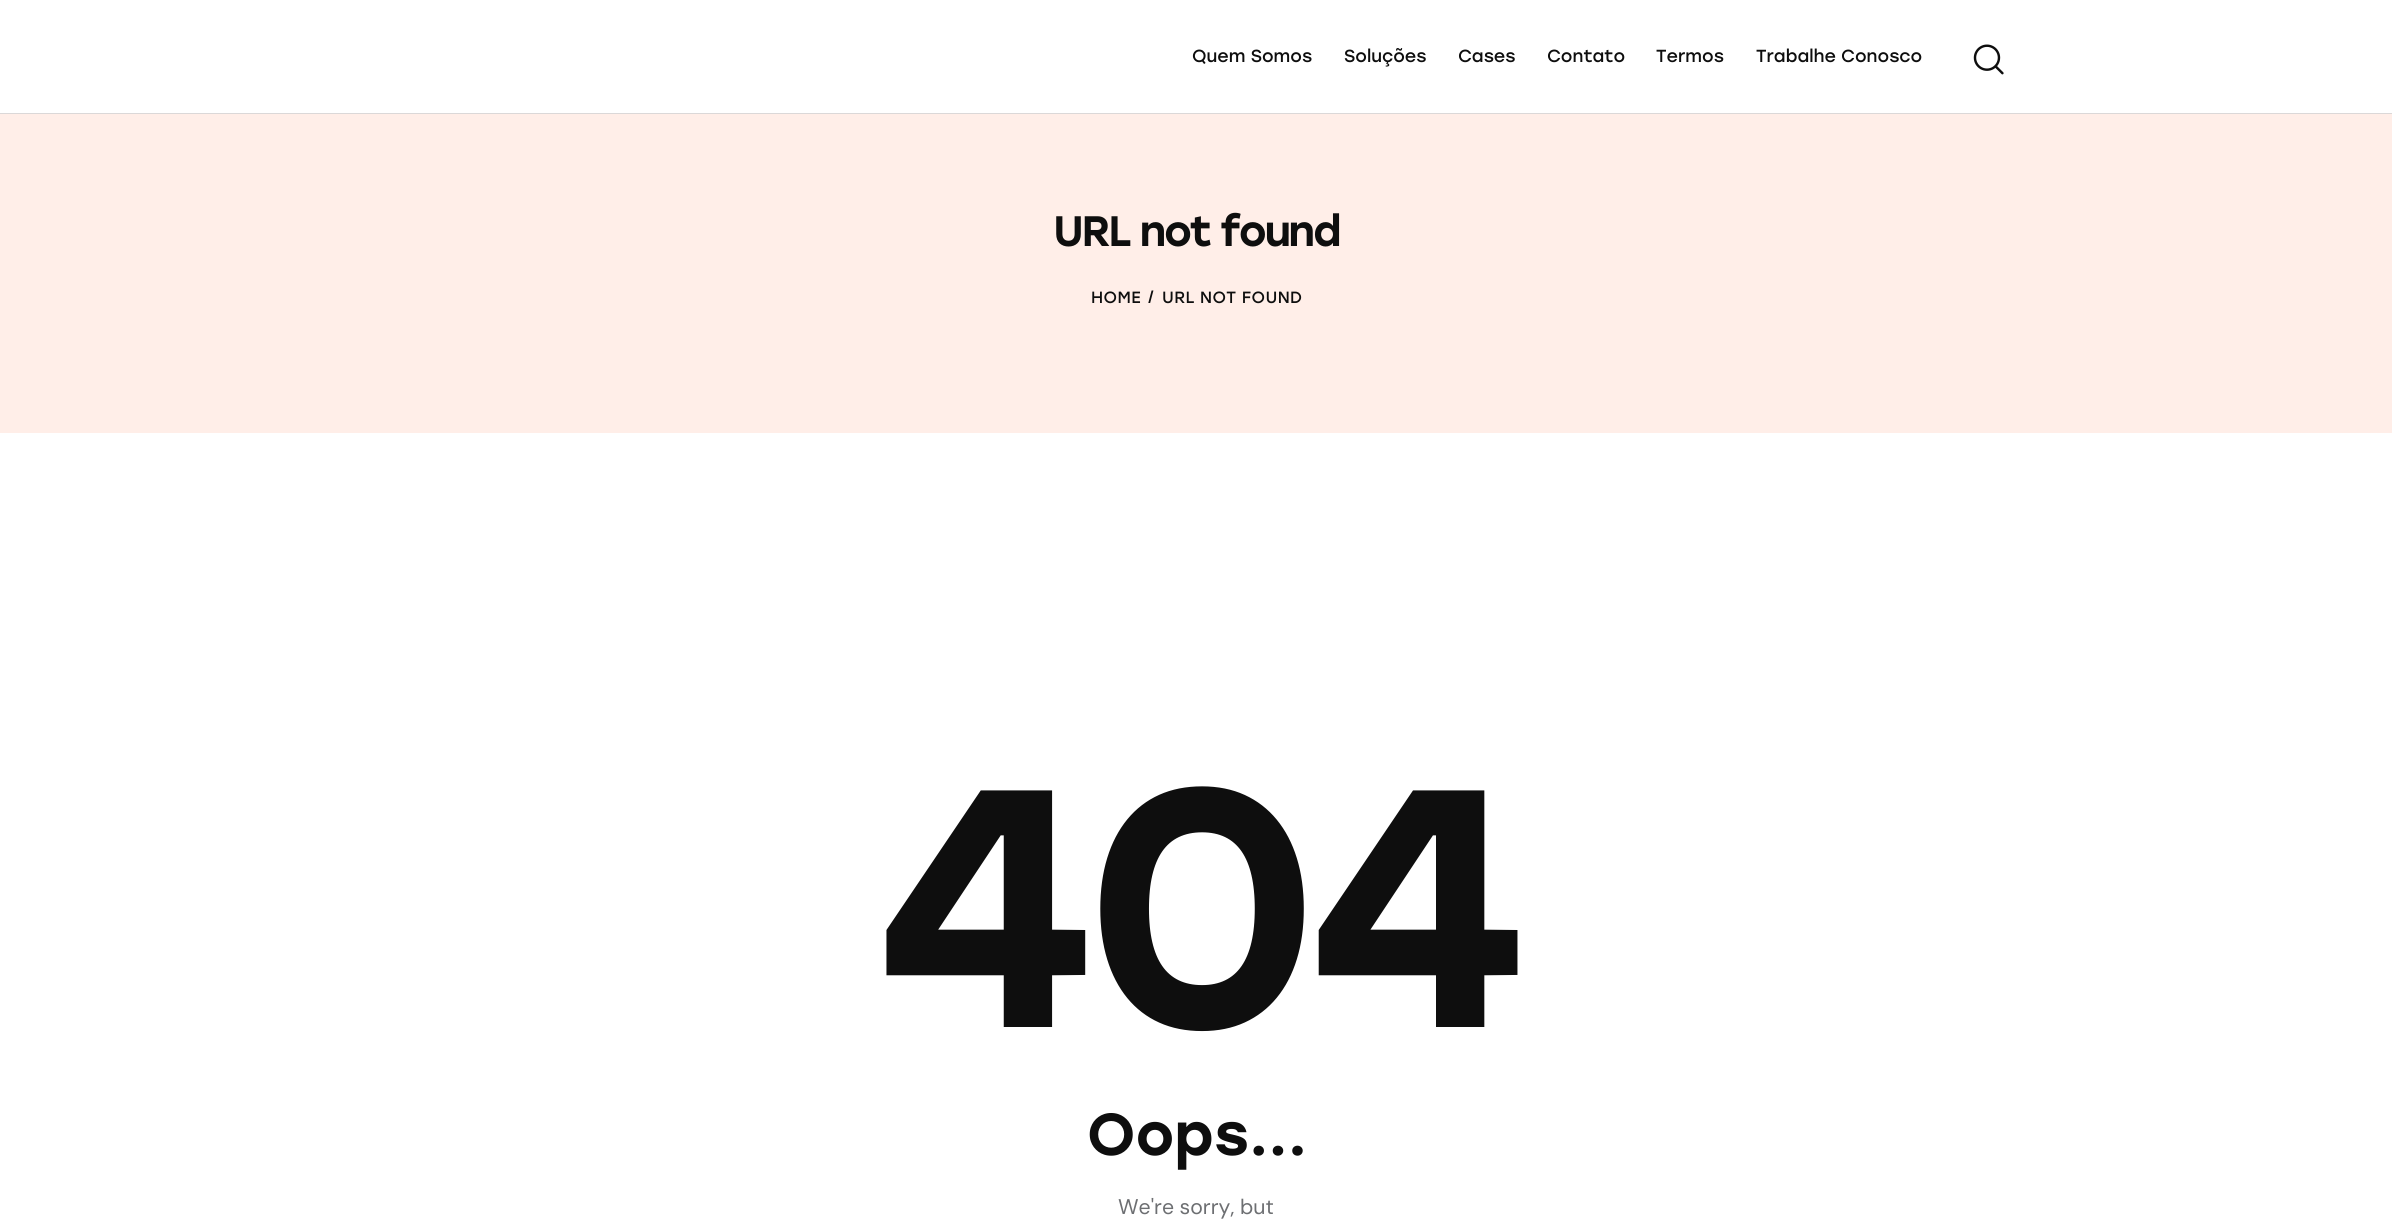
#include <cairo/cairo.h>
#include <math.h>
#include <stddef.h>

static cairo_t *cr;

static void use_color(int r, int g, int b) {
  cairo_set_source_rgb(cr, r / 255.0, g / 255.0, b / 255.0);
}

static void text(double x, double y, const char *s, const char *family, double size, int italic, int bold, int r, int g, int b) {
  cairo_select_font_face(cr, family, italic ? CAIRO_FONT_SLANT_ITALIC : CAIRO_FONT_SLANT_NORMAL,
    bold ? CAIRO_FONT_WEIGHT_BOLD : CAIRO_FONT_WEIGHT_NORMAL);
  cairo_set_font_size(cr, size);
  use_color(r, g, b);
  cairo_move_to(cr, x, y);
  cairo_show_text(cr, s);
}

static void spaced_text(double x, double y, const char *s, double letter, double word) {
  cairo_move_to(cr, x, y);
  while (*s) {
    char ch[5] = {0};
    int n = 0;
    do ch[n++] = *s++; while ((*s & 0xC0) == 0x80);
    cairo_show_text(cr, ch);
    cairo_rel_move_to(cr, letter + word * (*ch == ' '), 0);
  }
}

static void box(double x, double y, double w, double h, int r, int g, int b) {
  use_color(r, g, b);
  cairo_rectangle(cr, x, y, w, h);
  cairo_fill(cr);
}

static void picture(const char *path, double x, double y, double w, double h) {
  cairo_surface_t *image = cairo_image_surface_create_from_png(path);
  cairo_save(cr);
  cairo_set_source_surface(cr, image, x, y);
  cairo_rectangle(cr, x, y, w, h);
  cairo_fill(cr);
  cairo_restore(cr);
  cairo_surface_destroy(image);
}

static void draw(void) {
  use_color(255, 255, 255);
  cairo_paint(cr);
  box(0, 113, 2392, 1, 219, 216, 216);
  picture("img_01.png", 1973, 44, 31, 31);
  box(0, 114, 2392, 319, 255, 238, 232);
  text(1192, 62, "Quem Somos", "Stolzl", 17.5, 0, 0, 14, 14, 14);
  text(1344, 62, "Soluções", "Stolzl", 17.5, 0, 0, 14, 14, 14);
  text(1458, 62, "Cases", "Stolzl", 17.5, 0, 0, 14, 14, 14);
  text(1547, 62, "Contato", "Stolzl", 17.5, 0, 0, 14, 14, 14);
  text(1656, 62, "Termos", "Stolzl", 17.5, 0, 0, 14, 14, 14);
  text(1756, 62, "Trabalhe Conosco", "Stolzl", 17.5, 0, 0, 14, 14, 14);
  cairo_select_font_face(cr, "Stolzl Medium", CAIRO_FONT_SLANT_NORMAL, CAIRO_FONT_WEIGHT_NORMAL);
  cairo_set_font_size(cr, 42.5);
  spaced_text(1053, 246, "URL not found", -2.25, 0);
  cairo_select_font_face(cr, "Stolzl", CAIRO_FONT_SLANT_NORMAL, CAIRO_FONT_WEIGHT_NORMAL);
  cairo_set_font_size(cr, 16.25);
  spaced_text(1091, 303, "HOME", 0.4, 0);
  spaced_text(1148, 303, "/", 0.4, 0);
  spaced_text(1162, 303, "URL NOT FOUND", 0.4, 0);
  cairo_select_font_face(cr, "Stolzl Medium", CAIRO_FONT_SLANT_NORMAL, CAIRO_FONT_WEIGHT_NORMAL);
  cairo_set_font_size(cr, 338);
  spaced_text(877, 1027, "404", -10, 0);
  text(1087, 1155, "Oops...", "Stolzl Medium", 59, 0, 0, 14, 14, 14);
  text(1118, 1214, "We're sorry, but", "DM Sans", 21.25, 0, 0, 109, 111, 114);
}

int main(void) {
  cairo_surface_t *surface = cairo_image_surface_create(CAIRO_FORMAT_RGB24, 2392, 1224);
  cr = cairo_create(surface);
  cairo_font_options_t *options = cairo_font_options_create();
  cairo_font_options_set_hint_metrics(options, CAIRO_HINT_METRICS_OFF);
  cairo_font_options_set_hint_style(options, CAIRO_HINT_STYLE_NONE);
  cairo_set_font_options(cr, options);
  cairo_set_miter_limit(cr, 4);
  draw();
  cairo_surface_write_to_png(surface, "out.png");
  cairo_font_options_destroy(options);
  cairo_destroy(cr);
  cairo_surface_destroy(surface);
  return 0;
}
